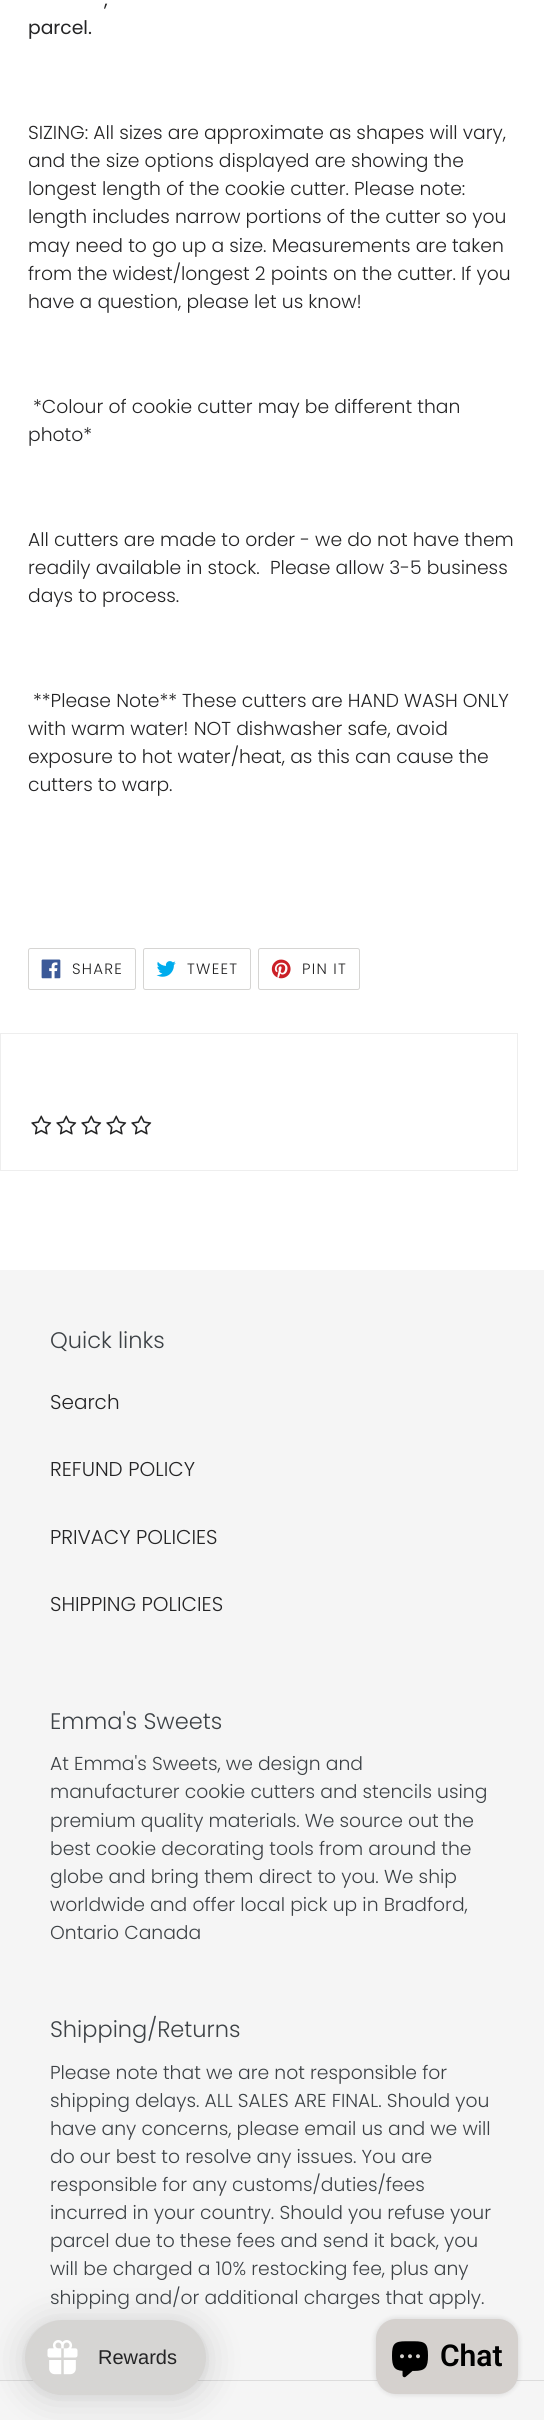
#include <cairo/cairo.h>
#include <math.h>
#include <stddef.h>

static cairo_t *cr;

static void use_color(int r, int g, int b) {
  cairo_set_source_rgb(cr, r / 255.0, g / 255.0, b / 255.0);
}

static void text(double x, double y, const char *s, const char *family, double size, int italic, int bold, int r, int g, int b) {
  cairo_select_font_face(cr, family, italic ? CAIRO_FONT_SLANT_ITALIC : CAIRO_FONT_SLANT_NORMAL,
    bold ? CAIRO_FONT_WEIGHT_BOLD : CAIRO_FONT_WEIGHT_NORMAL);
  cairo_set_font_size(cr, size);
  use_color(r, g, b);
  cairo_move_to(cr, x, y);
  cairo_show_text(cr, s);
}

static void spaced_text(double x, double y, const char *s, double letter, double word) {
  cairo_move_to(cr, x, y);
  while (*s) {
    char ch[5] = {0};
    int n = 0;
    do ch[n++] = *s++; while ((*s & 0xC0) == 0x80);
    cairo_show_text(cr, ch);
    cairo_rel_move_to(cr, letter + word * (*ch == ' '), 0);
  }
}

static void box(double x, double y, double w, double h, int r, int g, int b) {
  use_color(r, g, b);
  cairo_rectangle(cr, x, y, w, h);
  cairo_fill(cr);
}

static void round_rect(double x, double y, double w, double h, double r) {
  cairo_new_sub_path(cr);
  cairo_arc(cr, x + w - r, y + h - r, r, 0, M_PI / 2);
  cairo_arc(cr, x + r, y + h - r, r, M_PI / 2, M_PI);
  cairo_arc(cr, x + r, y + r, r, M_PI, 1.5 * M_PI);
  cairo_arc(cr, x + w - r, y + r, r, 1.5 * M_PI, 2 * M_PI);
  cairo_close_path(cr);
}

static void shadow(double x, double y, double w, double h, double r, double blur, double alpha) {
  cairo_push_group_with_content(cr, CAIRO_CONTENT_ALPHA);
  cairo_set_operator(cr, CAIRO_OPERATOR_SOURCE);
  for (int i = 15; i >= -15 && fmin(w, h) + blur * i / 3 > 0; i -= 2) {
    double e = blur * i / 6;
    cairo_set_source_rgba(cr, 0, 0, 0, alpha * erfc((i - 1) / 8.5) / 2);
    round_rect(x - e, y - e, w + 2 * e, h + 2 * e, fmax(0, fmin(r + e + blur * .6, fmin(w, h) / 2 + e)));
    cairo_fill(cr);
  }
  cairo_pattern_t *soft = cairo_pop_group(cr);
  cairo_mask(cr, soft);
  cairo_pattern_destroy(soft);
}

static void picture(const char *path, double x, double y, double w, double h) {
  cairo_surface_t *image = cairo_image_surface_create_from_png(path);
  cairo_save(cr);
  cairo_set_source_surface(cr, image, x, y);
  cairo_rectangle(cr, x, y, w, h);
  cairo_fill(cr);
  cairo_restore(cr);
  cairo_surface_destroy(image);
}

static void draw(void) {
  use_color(255, 255, 255);
  cairo_paint(cr);
  round_rect(28.5, 948.5, 107, 41, 2);
  use_color(214, 213, 211);
  cairo_set_line_width(cr, 1);
  cairo_stroke(cr);
  picture("img_01.png", 41, 959, 20, 20);
  round_rect(143.5, 948.5, 107, 41, 2);
  cairo_stroke(cr);
  picture("img_02.png", 156, 961, 20, 16);
  round_rect(258.5, 948.5, 101, 41, 2);
  cairo_stroke(cr);
  picture("img_03.png", 271, 959, 20, 20);
  cairo_rectangle(cr, 0.5, 1033.5, 517, 137);
  use_color(238, 238, 238);
  cairo_stroke(cr);
  picture("img_04.png", 31, 1115, 21, 20);
  picture("img_04.png", 56, 1115, 21, 20);
  picture("img_04.png", 81, 1115, 21, 20);
  picture("img_04.png", 106, 1115, 21, 20);
  picture("img_04.png", 131, 1115, 21, 20);
  box(0, 1270, 544, 1150, 245, 245, 245);
  box(0, 2380, 544, 1, 220, 220, 220);
  use_color(0, 0, 0);
  shadow(25, 2323, 181, 75, 37.5, 19, 0.15);
  shadow(25, 2321, 181, 75, 37.5, 4, 0.05);
  use_color(214, 213, 211);
  round_rect(25, 2320, 181, 75, 37.5);
  cairo_fill(cr);
  picture("img_05.png", 47, 2340, 31, 35);
  use_color(0, 0, 0);
  shadow(376, 2319, 142, 75, 20, 3, 0.15);
  use_color(213, 209, 206);
  round_rect(376, 2319, 142, 75, 20);
  cairo_fill(cr);
  picture("img_06.png", 392, 2341, 36, 37);
  text(104, 6, ",", "Poppins", 18.75, 0, 0, 36, 36, 37);
  text(28, 34, "parcel.", "Poppins", 18.75, 0, 0, 36, 36, 37);
  text(28, 139, "SIZING: All sizes are approximate as shapes will vary,", "Poppins Light", 18.75, 0, 0, 36, 36, 37);
  text(28, 167, "and the size options displayed are showing the", "Poppins Light", 18.75, 0, 0, 36, 36, 37);
  text(28, 195, "longest length of the cookie cutter. Please note:", "Poppins Light", 18.75, 0, 0, 36, 36, 37);
  text(28, 223, "length includes narrow portions of the cutter so you", "Poppins Light", 18.75, 0, 0, 36, 36, 37);
  text(28, 252, "may need to go up a size. Measurements are taken", "Poppins Light", 18.75, 0, 0, 36, 36, 37);
  text(28, 280, "from the widest/longest 2 points on the cutter. If you", "Poppins Light", 18.75, 0, 0, 36, 36, 37);
  text(28, 308, "have a question, please let us know!", "Poppins Light", 18.75, 0, 0, 36, 36, 37);
  text(33, 413, "*Colour of cookie cutter may be different than", "Poppins Light", 18.75, 0, 0, 36, 36, 37);
  text(28, 441, "photo*", "Poppins Light", 18.75, 0, 0, 36, 36, 37);
  text(28, 546, "All cutters are made to order - we do not have them", "Poppins Light", 18.75, 0, 0, 36, 36, 37);
  text(28, 574, "readily available in stock.  Please allow 3-5 business", "Poppins Light", 18.75, 0, 0, 36, 36, 37);
  text(28, 602, "days to process.", "Poppins Light", 18.75, 0, 0, 36, 36, 37);
  text(33, 707, "**Please Note** These cutters are HAND WASH ONLY", "Poppins Light", 18.75, 0, 0, 36, 36, 37);
  text(28, 735, "with warm water! NOT dishwasher safe, avoid", "Poppins Light", 18.75, 0, 0, 36, 36, 37);
  text(28, 763, "exposure to hot water/heat, as this can cause the", "Poppins Light", 18.75, 0, 0, 36, 36, 37);
  text(28, 791, "cutters to warp.", "Poppins Light", 18.75, 0, 0, 36, 36, 37);
  cairo_set_font_size(cr, 15);
  spaced_text(72, 974, "SHARE", 1.25, 0);
  spaced_text(187, 974, "TWEET", 1.25, 0);
  spaced_text(302, 974, "PIN IT", 1.25, 0);
  text(50, 1348, "Quick links", "Poppins Light", 22.5, 0, 0, 61, 66, 70);
  text(50, 1409, "Search", "Poppins Light", 20, 0, 0, 36, 36, 37);
  text(50, 1476, "REFUND POLICY", "Poppins Light", 20, 0, 0, 36, 36, 37);
  text(50, 1544, "PRIVACY POLICIES", "Poppins Light", 20, 0, 0, 36, 36, 37);
  text(50, 1611, "SHIPPING POLICIES", "Poppins Light", 20, 0, 0, 36, 36, 37);
  text(50, 1729, "Emma's Sweets", "Poppins Light", 22.5, 0, 0, 61, 66, 70);
  text(50, 1770, "At Emma's Sweets, we design and", "Poppins Light", 18.75, 0, 0, 61, 66, 70);
  text(50, 1798, "manufacturer cookie cutters and stencils using", "Poppins Light", 18.75, 0, 0, 61, 66, 70);
  text(50, 1827, "premium quality materials. We source out the", "Poppins Light", 18.75, 0, 0, 61, 66, 70);
  text(50, 1855, "best cookie decorating tools from around the", "Poppins Light", 18.75, 0, 0, 61, 66, 70);
  text(50, 1883, "globe and bring them direct to you. We ship", "Poppins Light", 18.75, 0, 0, 61, 66, 70);
  text(50, 1911, "worldwide and offer local pick up in Bradford,", "Poppins Light", 18.75, 0, 0, 61, 66, 70);
  text(50, 1939, "Ontario Canada", "Poppins Light", 18.75, 0, 0, 61, 66, 70);
  text(50, 2037, "Shipping/Returns", "Poppins Light", 22.5, 0, 0, 61, 66, 70);
  text(50, 2079, "Please note that we are not responsible for", "Poppins Light", 18.75, 0, 0, 61, 66, 70);
  text(50, 2107, "shipping delays. ALL SALES ARE FINAL. Should you", "Poppins Light", 18.75, 0, 0, 61, 66, 70);
  text(50, 2135, "have any concerns, please email us and we will", "Poppins Light", 18.75, 0, 0, 61, 66, 70);
  text(50, 2163, "do our best to resolve any issues. You are", "Poppins Light", 18.75, 0, 0, 61, 66, 70);
  text(50, 2191, "responsible for any customs/duties/fees", "Poppins Light", 18.75, 0, 0, 61, 66, 70);
  text(50, 2219, "incurred in your country. Should you refuse your", "Poppins Light", 18.75, 0, 0, 61, 66, 70);
  text(50, 2247, "parcel due to these fees and send it back, you", "Poppins Light", 18.75, 0, 0, 61, 66, 70);
  text(50, 2275, "will be charged a 10% restocking fee, plus any", "Poppins Light", 18.75, 0, 0, 61, 66, 70);
  text(50, 2304, "shipping and/or additional charges that apply.", "Poppins Light", 18.75, 0, 0, 61, 66, 70);
  text(98, 2364, "Rewards", "Liberation Sans", 20, 0, 0, 36, 36, 37);
  text(440, 2366, "Chat", "Roboto SemiBold", 30, 0, 0, 0, 0, 0);
}

int main(void) {
  cairo_surface_t *surface = cairo_image_surface_create(CAIRO_FORMAT_RGB24, 544, 2420);
  cr = cairo_create(surface);
  cairo_font_options_t *options = cairo_font_options_create();
  cairo_font_options_set_hint_metrics(options, CAIRO_HINT_METRICS_OFF);
  cairo_font_options_set_hint_style(options, CAIRO_HINT_STYLE_NONE);
  cairo_set_font_options(cr, options);
  cairo_set_miter_limit(cr, 4);
  draw();
  cairo_surface_write_to_png(surface, "out.png");
  cairo_font_options_destroy(options);
  cairo_destroy(cr);
  cairo_surface_destroy(surface);
  return 0;
}
